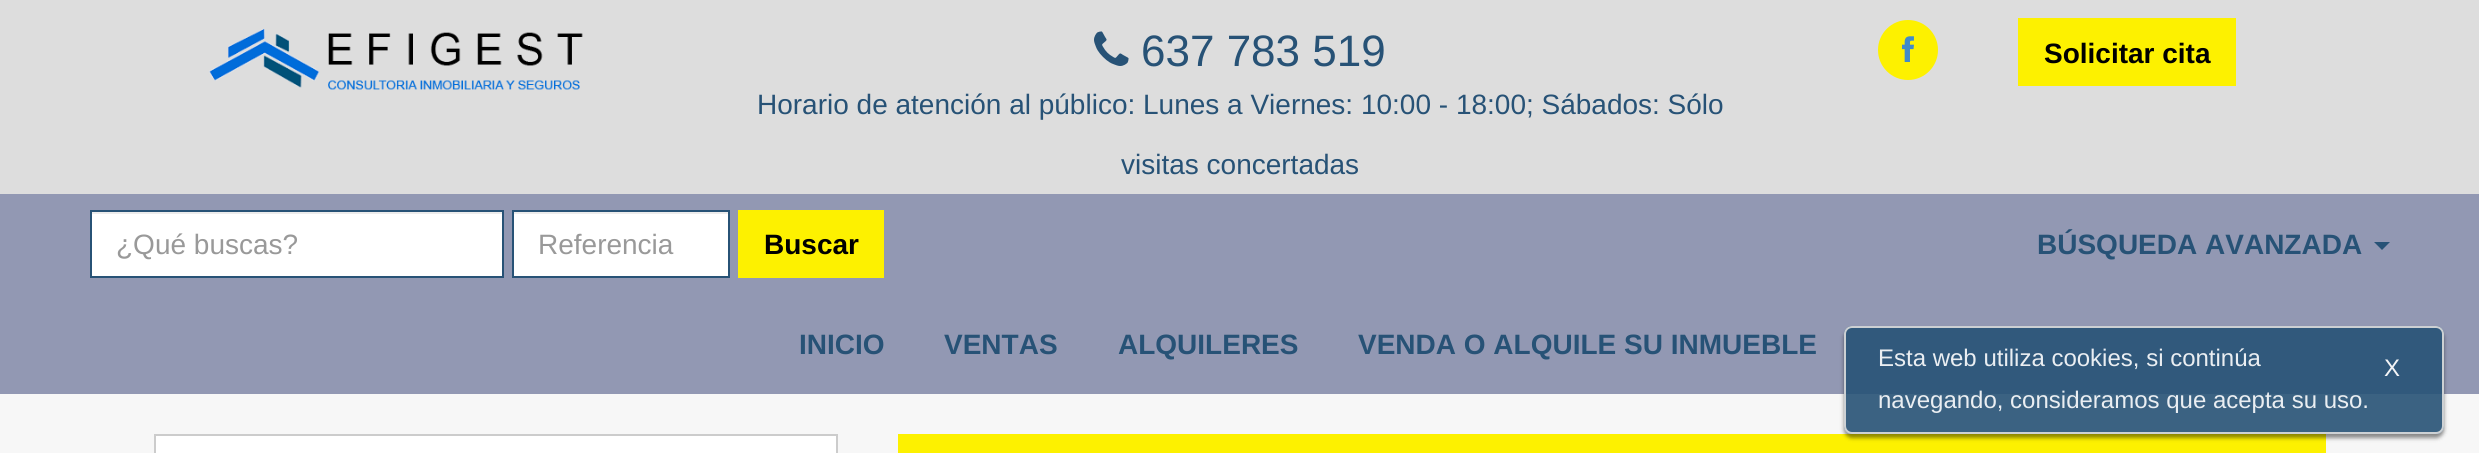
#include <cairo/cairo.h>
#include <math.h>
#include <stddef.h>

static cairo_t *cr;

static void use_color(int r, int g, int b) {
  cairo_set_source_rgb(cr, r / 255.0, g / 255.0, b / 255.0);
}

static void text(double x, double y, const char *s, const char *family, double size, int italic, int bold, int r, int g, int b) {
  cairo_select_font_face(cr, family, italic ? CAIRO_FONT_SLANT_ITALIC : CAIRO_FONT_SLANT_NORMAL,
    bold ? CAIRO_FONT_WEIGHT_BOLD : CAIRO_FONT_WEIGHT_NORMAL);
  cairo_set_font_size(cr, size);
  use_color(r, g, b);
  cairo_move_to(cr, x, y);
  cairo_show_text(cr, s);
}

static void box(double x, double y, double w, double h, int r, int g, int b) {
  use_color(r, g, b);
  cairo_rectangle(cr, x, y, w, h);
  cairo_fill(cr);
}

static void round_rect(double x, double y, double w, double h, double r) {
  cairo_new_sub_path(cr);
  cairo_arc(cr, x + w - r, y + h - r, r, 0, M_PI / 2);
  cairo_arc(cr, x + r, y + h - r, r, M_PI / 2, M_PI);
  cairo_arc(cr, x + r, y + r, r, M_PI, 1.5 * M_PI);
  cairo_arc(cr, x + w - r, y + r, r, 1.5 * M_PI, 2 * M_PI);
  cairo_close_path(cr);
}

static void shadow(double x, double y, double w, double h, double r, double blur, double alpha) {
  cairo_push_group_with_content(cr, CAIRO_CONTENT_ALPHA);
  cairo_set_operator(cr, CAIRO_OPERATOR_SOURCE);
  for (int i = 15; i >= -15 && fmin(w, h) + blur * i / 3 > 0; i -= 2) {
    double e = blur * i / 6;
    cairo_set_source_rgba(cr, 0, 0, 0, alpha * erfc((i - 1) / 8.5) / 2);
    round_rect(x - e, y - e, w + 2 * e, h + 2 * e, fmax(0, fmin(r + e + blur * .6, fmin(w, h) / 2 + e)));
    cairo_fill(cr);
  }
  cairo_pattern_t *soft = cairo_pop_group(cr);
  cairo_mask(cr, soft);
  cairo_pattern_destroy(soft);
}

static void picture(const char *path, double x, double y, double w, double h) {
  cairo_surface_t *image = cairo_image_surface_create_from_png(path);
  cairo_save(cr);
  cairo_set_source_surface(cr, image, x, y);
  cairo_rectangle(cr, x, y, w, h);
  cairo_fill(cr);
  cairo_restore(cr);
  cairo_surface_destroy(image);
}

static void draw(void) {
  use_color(247, 247, 247);
  cairo_paint(cr);
  box(0, 0, 2479, 194, 221, 221, 221);
  picture("img_01.png", 209, 29, 374, 61);
  picture("img_02.png", 1094, 31, 35, 35);
  use_color(253, 241, 0);
  cairo_arc(cr, 1908, 50, 30, 0, 2 * M_PI);
  cairo_fill(cr);
  picture("img_03.png", 1902, 36, 12, 26);
  box(2018, 18, 218, 68, 253, 241, 0);
  box(0, 194, 2479, 200, 146, 152, 179);
  box(92, 214, 410, 62, 255, 255, 255);
  box(92, 212, 410, 2, 236, 236, 236);
  cairo_rectangle(cr, 91, 211, 412, 66);
  use_color(39, 82, 118);
  cairo_stroke(cr);
  box(514, 214, 214, 62, 255, 255, 255);
  box(514, 212, 214, 2, 236, 236, 236);
  cairo_rectangle(cr, 513, 211, 216, 66);
  use_color(39, 82, 118);
  cairo_stroke(cr);
  box(738, 210, 146, 68, 253, 241, 0);
  use_color(39, 82, 118);
  cairo_new_path(cr);
  cairo_move_to(cr, 2374, 242);
  cairo_line_to(cr, 2390, 242);
  cairo_line_to(cr, 2382, 250);
  cairo_close_path(cr);
  cairo_fill(cr);
  box(898, 434, 1428, 19, 253, 241, 0);
  cairo_save(cr);
  cairo_set_fill_rule(cr, CAIRO_FILL_RULE_EVEN_ODD);
  cairo_new_path(cr);
  cairo_move_to(cr, 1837, 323);
  cairo_line_to(cr, 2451, 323);
  cairo_line_to(cr, 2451, 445);
  cairo_line_to(cr, 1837, 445);
  cairo_close_path(cr);
  cairo_move_to(cr, 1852, 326);
  cairo_line_to(cr, 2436, 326);
  cairo_curve_to(cr, 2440.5, 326, 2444, 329.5, 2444, 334);
  cairo_line_to(cr, 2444, 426);
  cairo_curve_to(cr, 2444, 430.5, 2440.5, 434, 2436, 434);
  cairo_line_to(cr, 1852, 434);
  cairo_curve_to(cr, 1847.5, 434, 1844, 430.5, 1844, 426);
  cairo_line_to(cr, 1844, 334);
  cairo_curve_to(cr, 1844, 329.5, 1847.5, 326, 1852, 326);
  cairo_close_path(cr);
  cairo_clip(cr);
  use_color(0, 0, 0);
  shadow(1844, 330, 600, 108, 8, 2, 0.45);
  cairo_restore(cr);
  cairo_set_source_rgba(cr, 0.153, 0.322, 0.463, 0.9);
  round_rect(1844, 326, 600, 108, 8);
  cairo_fill(cr);
  round_rect(1845, 327, 598, 106, 7);
  cairo_set_source_rgba(cr, 0.867, 0.867, 0.867, 0.9);
  cairo_stroke(cr);
  use_color(255, 255, 255);
  cairo_rectangle(cr, 155, 435, 682, 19);
  cairo_fill_preserve(cr);
  use_color(204, 204, 204);
  cairo_stroke(cr);
  text(1141, 66, "637 783 519", "Liberation Sans", 44, 0, 0, 39, 82, 118);
  text(757, 114, "Horario de atención al público: Lunes a Viernes: 10:00 - 18:00; Sábados: Sólo", "Liberation Sans", 28, 0, 0, 39, 82, 118);
  text(1121, 174, "visitas concertadas", "Liberation Sans", 28, 0, 0, 39, 82, 118);
  text(2044, 63, "Solicitar cita", "Liberation Sans", 28, 0, 1, 0, 0, 0);
  text(116, 254, "¿Qué buscas?", "Liberation Sans", 28, 0, 0, 153, 153, 153);
  text(538, 254, "Referencia", "Liberation Sans", 28, 0, 0, 153, 153, 153);
  text(764, 254, "Buscar", "Liberation Sans", 28, 0, 1, 0, 0, 0);
  text(2037, 254, "BÚSQUEDA AVANZADA", "Liberation Sans", 28, 0, 1, 39, 82, 118);
  text(799, 354, "INICIO", "Liberation Sans", 28, 0, 1, 39, 82, 118);
  text(944, 354, "VENTAS", "Liberation Sans", 28, 0, 1, 39, 82, 118);
  text(1118, 354, "ALQUILERES", "Liberation Sans", 28, 0, 1, 39, 82, 118);
  text(1358, 354, "VENDA O ALQUILE SU INMUEBLE", "Liberation Sans", 28, 0, 1, 39, 82, 118);
  text(1878, 366, "Esta web utiliza cookies, si continúa", "Liberation Sans", 24, 0, 0, 234, 238, 242);
  text(1878, 408, "navegando, consideramos que acepta su uso.", "Liberation Sans", 24, 0, 0, 234, 238, 242);
  text(2384, 376, "X", "Liberation Sans", 24, 0, 0, 244, 245, 247);
}

int main(void) {
  cairo_surface_t *surface = cairo_image_surface_create(CAIRO_FORMAT_RGB24, 2479, 453);
  cr = cairo_create(surface);
  cairo_font_options_t *options = cairo_font_options_create();
  cairo_font_options_set_hint_metrics(options, CAIRO_HINT_METRICS_OFF);
  cairo_font_options_set_hint_style(options, CAIRO_HINT_STYLE_NONE);
  cairo_set_font_options(cr, options);
  cairo_set_miter_limit(cr, 4);
  draw();
  cairo_surface_write_to_png(surface, "out.png");
  cairo_font_options_destroy(options);
  cairo_destroy(cr);
  cairo_surface_destroy(surface);
  return 0;
}
